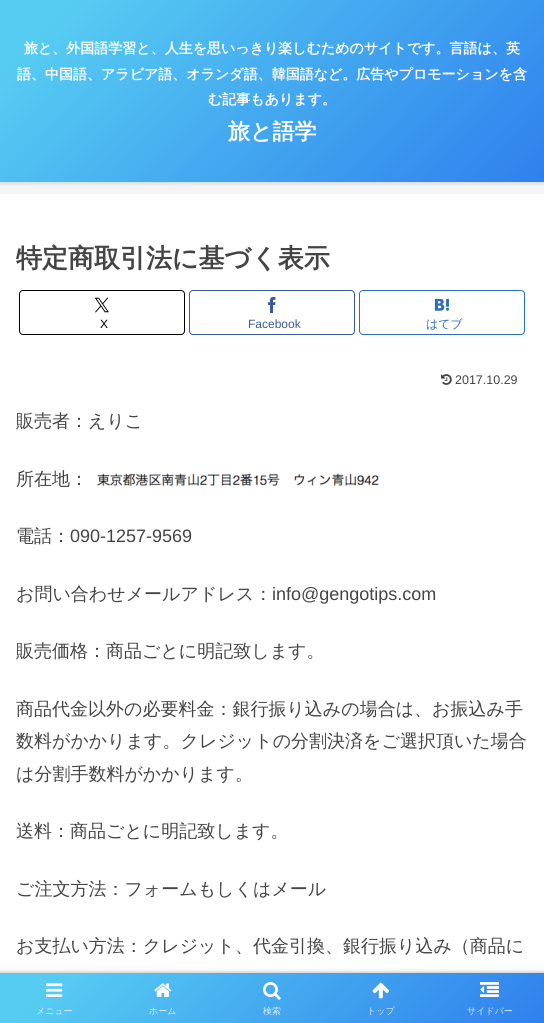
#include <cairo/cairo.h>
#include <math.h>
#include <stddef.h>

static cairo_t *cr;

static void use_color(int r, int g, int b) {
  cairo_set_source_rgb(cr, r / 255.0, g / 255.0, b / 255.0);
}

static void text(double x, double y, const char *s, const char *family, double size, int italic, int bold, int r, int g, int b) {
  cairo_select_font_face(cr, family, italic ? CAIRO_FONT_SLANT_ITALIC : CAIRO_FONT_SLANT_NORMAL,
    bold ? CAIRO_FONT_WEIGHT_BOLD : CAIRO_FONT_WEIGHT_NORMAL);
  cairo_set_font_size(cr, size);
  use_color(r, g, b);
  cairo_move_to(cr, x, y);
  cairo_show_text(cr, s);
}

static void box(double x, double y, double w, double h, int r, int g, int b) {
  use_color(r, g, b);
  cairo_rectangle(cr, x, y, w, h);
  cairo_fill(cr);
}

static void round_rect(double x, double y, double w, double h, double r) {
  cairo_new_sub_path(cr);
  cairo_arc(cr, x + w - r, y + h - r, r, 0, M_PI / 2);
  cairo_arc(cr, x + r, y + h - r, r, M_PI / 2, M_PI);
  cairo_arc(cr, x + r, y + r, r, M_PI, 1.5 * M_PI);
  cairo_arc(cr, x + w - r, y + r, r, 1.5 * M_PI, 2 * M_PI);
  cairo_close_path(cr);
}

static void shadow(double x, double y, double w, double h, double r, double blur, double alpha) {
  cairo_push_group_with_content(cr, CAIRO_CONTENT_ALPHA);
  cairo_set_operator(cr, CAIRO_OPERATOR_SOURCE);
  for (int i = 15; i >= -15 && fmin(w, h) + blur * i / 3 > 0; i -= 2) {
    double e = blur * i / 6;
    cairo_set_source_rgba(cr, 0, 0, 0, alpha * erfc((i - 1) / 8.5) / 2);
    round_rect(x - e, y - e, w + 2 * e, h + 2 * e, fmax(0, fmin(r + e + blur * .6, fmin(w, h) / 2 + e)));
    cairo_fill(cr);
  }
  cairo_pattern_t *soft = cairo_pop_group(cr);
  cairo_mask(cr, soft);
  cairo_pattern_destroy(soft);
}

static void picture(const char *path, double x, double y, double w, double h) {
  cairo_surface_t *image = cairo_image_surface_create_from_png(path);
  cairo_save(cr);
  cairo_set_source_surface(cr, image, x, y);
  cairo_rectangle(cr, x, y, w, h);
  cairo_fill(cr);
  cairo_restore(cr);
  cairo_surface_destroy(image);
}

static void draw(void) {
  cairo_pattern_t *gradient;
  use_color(244, 245, 247);
  cairo_paint(cr);
  use_color(0, 0, 0);
  shadow(0, 2, 544, 182, 0, 1.5, 0.1);
  gradient = cairo_pattern_create_linear(90, -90, 454, 273);
  cairo_pattern_add_color_stop_rgba(gradient, 0.1, 0.337, 0.8, 0.949, 1);
  cairo_pattern_add_color_stop_rgba(gradient, 1, 0.184, 0.502, 0.929, 1);
  cairo_set_source(cr, gradient);
  cairo_pattern_destroy(gradient);
  cairo_rectangle(cr, 0, 0, 544, 182);
  cairo_fill(cr);
  box(0, 194, 544, 779, 255, 255, 255);
  round_rect(19.5, 290.5, 165, 44, 3.5);
  use_color(0, 0, 0);
  cairo_set_line_width(cr, 1);
  cairo_stroke(cr);
  picture("img_01.png", 94, 297, 15, 16);
  round_rect(189.5, 290.5, 165, 44, 3.5);
  use_color(59, 89, 152);
  cairo_stroke(cr);
  picture("img_02.png", 268, 297, 8, 16);
  round_rect(359.5, 290.5, 165, 44, 3.5);
  use_color(44, 110, 189);
  cairo_stroke(cr);
  picture("img_03.png", 434, 298, 16, 13);
  picture("img_04.png", 441, 374, 11, 11);
  picture("img_05.png", 96, 473, 283, 14);
  use_color(169, 169, 169);
  shadow(0, 973, 544, 50, 0, 2.5, 1);
  gradient = cairo_pattern_create_linear(123, 850, 421, 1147);
  cairo_pattern_add_color_stop_rgba(gradient, 0.1, 0.337, 0.8, 0.949, 1);
  cairo_pattern_add_color_stop_rgba(gradient, 1, 0.184, 0.502, 0.929, 1);
  cairo_set_source(cr, gradient);
  cairo_pattern_destroy(gradient);
  cairo_rectangle(cr, 0, 973, 544, 50);
  cairo_fill(cr);
  picture("img_06.png", 46, 983, 17, 14);
  picture("img_07.png", 154, 983, 18, 14);
  picture("img_08.png", 263, 982, 18, 18);
  picture("img_09.png", 372, 982, 17, 17);
  picture("img_10.png", 480, 982, 19, 15);
  text(24, 53, "旅と、外国語学習と、人生を思いっきり楽しむためのサイトです。言語は、英", "WenQuanYi Zen Hei", 14, 0, 1, 255, 255, 255);
  text(17, 79, "語、中国語、アラビア語、オランダ語、韓国語など。広告やプロモーションを含", "WenQuanYi Zen Hei", 14, 0, 1, 255, 255, 255);
  text(208, 104, "む記事もあります。", "WenQuanYi Zen Hei", 14, 0, 1, 255, 255, 255);
  text(228, 139, "旅と語学", "WenQuanYi Zen Hei", 22, 0, 1, 255, 255, 255);
  text(16, 267, "特定商取引法に基づく表示", "WenQuanYi Zen Hei", 26, 0, 1, 68, 68, 68);
  text(100, 328, "X", "Liberation Sans", 12, 0, 0, 0, 0, 0);
  text(248, 328, "Facebook", "Liberation Sans", 12, 0, 0, 59, 89, 152);
  text(426, 328, "はてブ", "WenQuanYi Zen Hei Medium", 12, 0, 0, 44, 110, 189);
  text(455, 384, "2017.10.29", "Liberation Sans", 12.5, 0, 0, 68, 68, 68);
  text(16, 427, "販売者：えりこ", "WenQuanYi Zen Hei Medium", 18, 0, 0, 68, 68, 68);
  text(16, 485, "所在地：", "WenQuanYi Zen Hei Medium", 18, 0, 0, 68, 68, 68);
  text(16, 542, "電話：", "WenQuanYi Zen Hei Medium", 18, 0, 0, 68, 68, 68);
  text(70, 542, "090-1257-9569", "Liberation Sans", 18, 0, 0, 68, 68, 68);
  text(16, 600, "お問い合わせメールアドレス：", "WenQuanYi Zen Hei Medium", 18, 0, 0, 68, 68, 68);
  text(272, 600, "info@gengotips.com", "Liberation Sans", 18, 0, 0, 68, 68, 68);
  text(16, 657, "販売価格：商品ごとに明記致します。", "WenQuanYi Zen Hei Medium", 18, 0, 0, 68, 68, 68);
  text(16, 715, "商品代金以外の必要料金：銀行振り込みの場合は、お振込み手", "WenQuanYi Zen Hei Medium", 18, 0, 0, 68, 68, 68);
  text(16, 747, "数料がかかります。クレジットの分割決済をご選択頂いた場合", "WenQuanYi Zen Hei Medium", 18, 0, 0, 68, 68, 68);
  text(16, 780, "は分割手数料がかかります。", "WenQuanYi Zen Hei Medium", 18, 0, 0, 68, 68, 68);
  text(16, 837, "送料：商品ごとに明記致します。", "WenQuanYi Zen Hei Medium", 18, 0, 0, 68, 68, 68);
  text(16, 895, "ご注文方法：フォームもしくはメール", "WenQuanYi Zen Hei Medium", 18, 0, 0, 68, 68, 68);
  text(16, 952, "お支払い方法：クレジット、代金引換、銀行振り込み（商品に", "WenQuanYi Zen Hei Medium", 18, 0, 0, 68, 68, 68);
  text(36, 1014, "メニュー", "WenQuanYi Zen Hei Medium", 9, 0, 0, 221, 244, 252);
  text(149, 1014, "ホーム", "WenQuanYi Zen Hei Medium", 9, 0, 0, 221, 244, 252);
  text(263, 1014, "検索", "WenQuanYi Zen Hei Medium", 9, 0, 0, 218, 238, 252);
  text(367, 1014, "トップ", "WenQuanYi Zen Hei Medium", 9, 0, 0, 218, 238, 252);
  text(467, 1014, "サイドバー", "WenQuanYi Zen Hei Medium", 9, 0, 0, 214, 232, 252);
}

int main(void) {
  cairo_surface_t *surface = cairo_image_surface_create(CAIRO_FORMAT_RGB24, 544, 1023);
  cr = cairo_create(surface);
  cairo_font_options_t *options = cairo_font_options_create();
  cairo_font_options_set_hint_metrics(options, CAIRO_HINT_METRICS_OFF);
  cairo_font_options_set_hint_style(options, CAIRO_HINT_STYLE_NONE);
  cairo_set_font_options(cr, options);
  cairo_set_miter_limit(cr, 4);
  draw();
  cairo_surface_write_to_png(surface, "out.png");
  cairo_font_options_destroy(options);
  cairo_destroy(cr);
  cairo_surface_destroy(surface);
  return 0;
}
